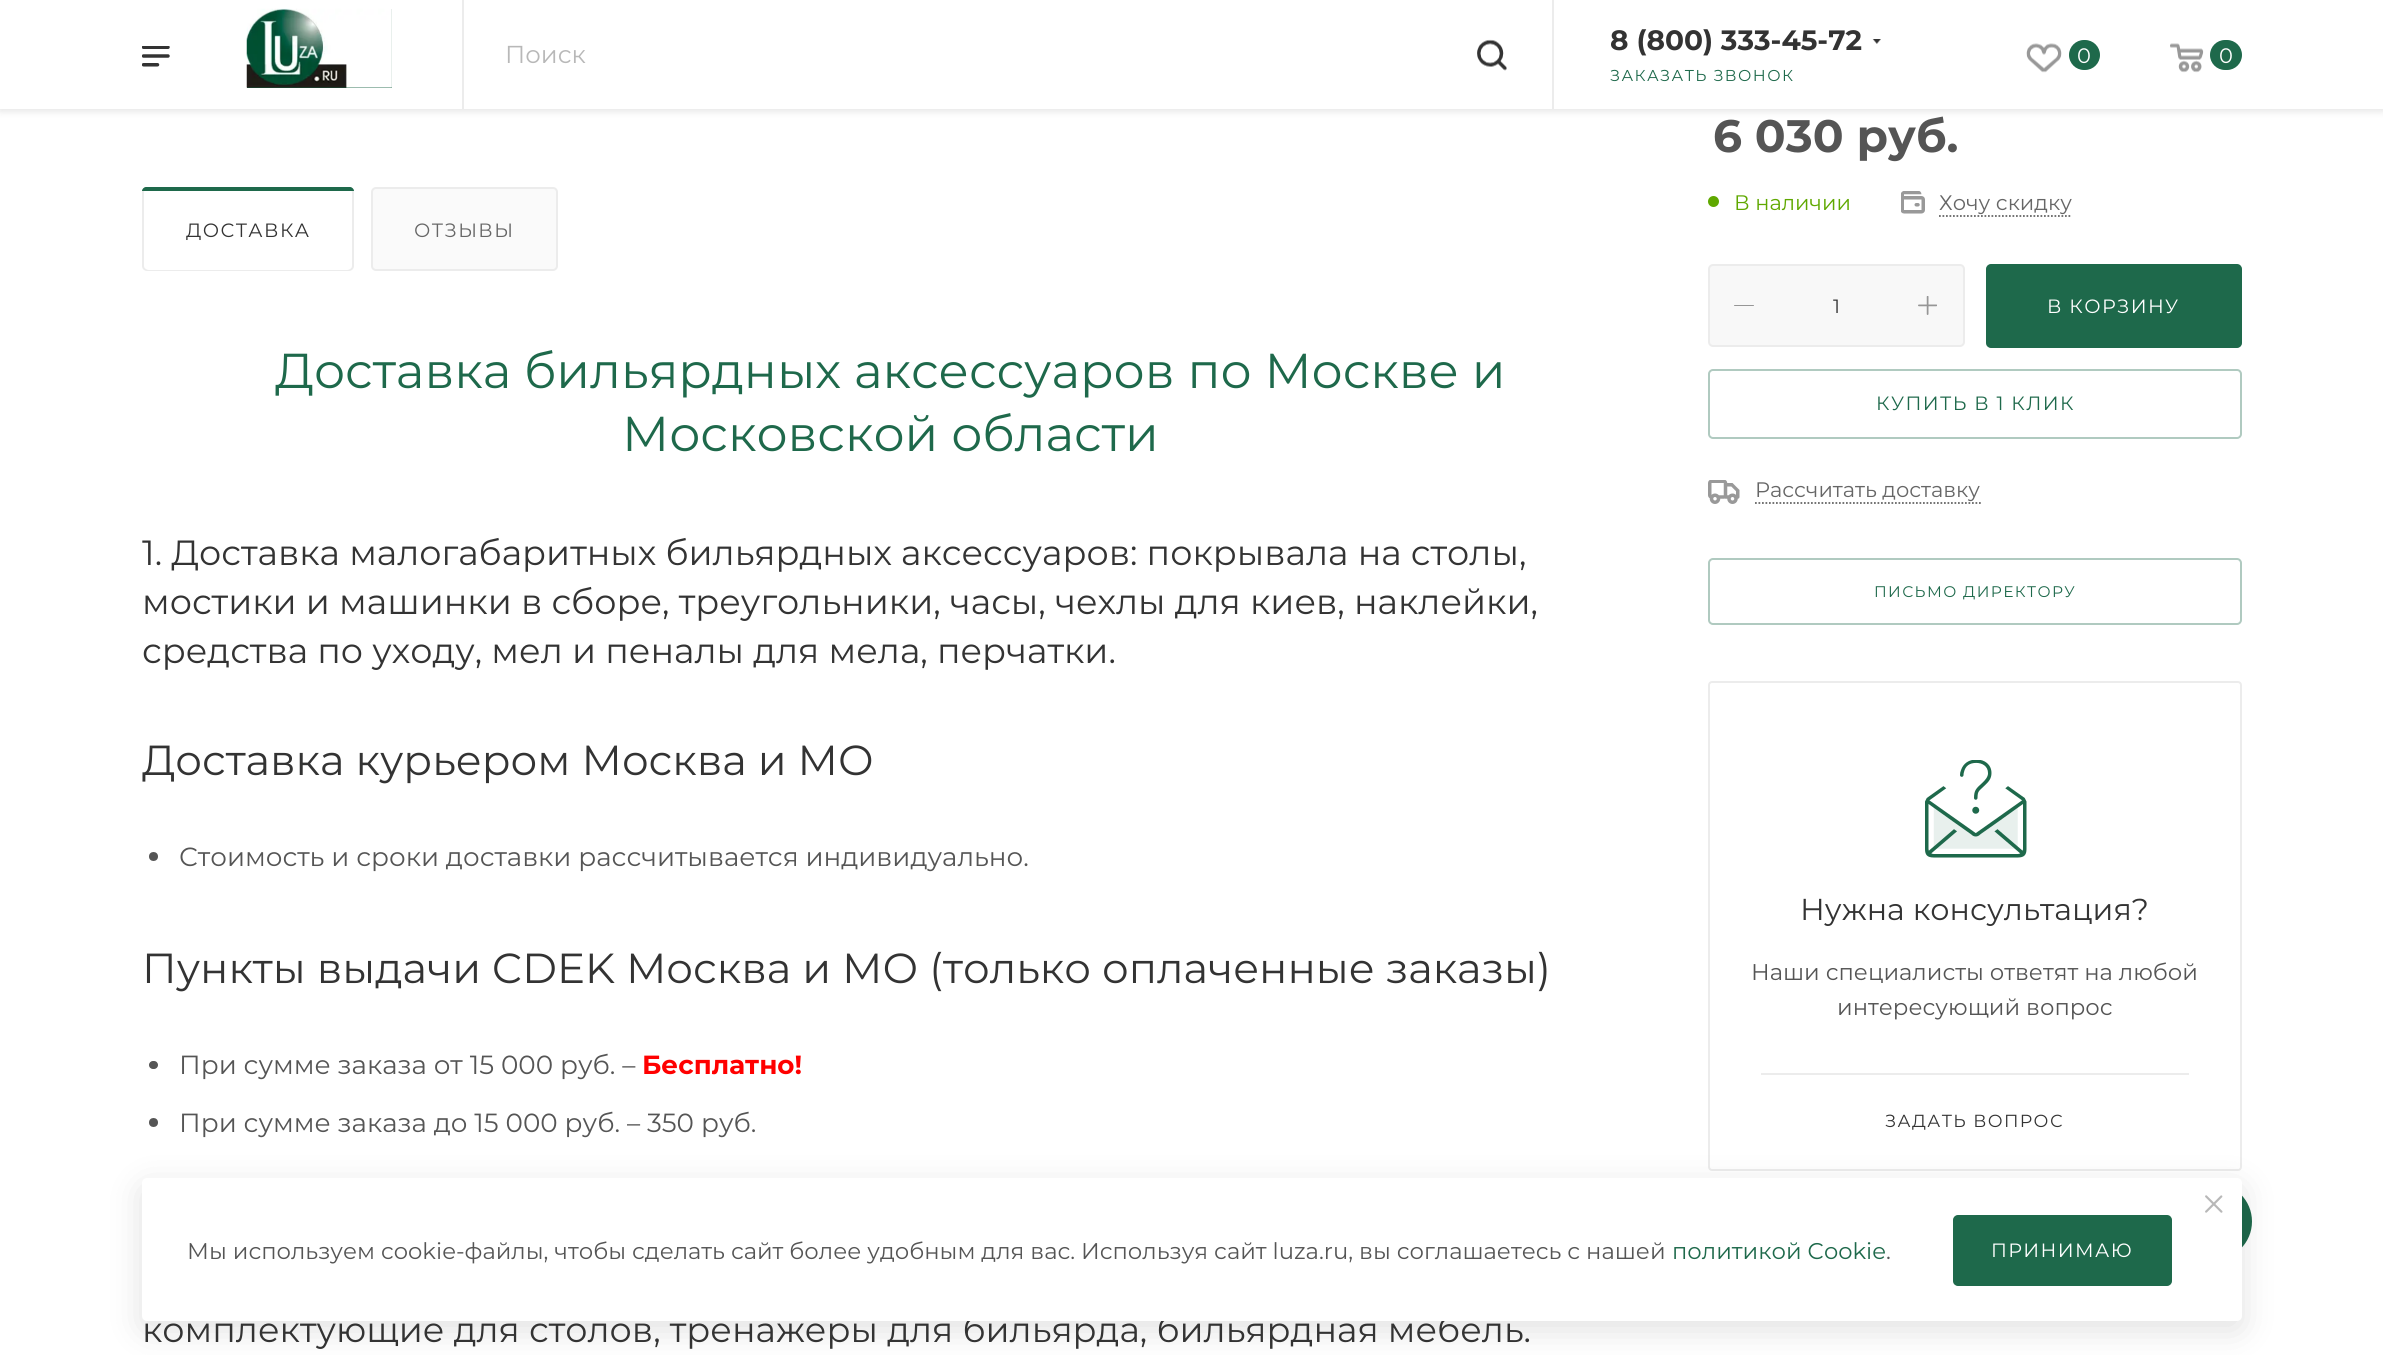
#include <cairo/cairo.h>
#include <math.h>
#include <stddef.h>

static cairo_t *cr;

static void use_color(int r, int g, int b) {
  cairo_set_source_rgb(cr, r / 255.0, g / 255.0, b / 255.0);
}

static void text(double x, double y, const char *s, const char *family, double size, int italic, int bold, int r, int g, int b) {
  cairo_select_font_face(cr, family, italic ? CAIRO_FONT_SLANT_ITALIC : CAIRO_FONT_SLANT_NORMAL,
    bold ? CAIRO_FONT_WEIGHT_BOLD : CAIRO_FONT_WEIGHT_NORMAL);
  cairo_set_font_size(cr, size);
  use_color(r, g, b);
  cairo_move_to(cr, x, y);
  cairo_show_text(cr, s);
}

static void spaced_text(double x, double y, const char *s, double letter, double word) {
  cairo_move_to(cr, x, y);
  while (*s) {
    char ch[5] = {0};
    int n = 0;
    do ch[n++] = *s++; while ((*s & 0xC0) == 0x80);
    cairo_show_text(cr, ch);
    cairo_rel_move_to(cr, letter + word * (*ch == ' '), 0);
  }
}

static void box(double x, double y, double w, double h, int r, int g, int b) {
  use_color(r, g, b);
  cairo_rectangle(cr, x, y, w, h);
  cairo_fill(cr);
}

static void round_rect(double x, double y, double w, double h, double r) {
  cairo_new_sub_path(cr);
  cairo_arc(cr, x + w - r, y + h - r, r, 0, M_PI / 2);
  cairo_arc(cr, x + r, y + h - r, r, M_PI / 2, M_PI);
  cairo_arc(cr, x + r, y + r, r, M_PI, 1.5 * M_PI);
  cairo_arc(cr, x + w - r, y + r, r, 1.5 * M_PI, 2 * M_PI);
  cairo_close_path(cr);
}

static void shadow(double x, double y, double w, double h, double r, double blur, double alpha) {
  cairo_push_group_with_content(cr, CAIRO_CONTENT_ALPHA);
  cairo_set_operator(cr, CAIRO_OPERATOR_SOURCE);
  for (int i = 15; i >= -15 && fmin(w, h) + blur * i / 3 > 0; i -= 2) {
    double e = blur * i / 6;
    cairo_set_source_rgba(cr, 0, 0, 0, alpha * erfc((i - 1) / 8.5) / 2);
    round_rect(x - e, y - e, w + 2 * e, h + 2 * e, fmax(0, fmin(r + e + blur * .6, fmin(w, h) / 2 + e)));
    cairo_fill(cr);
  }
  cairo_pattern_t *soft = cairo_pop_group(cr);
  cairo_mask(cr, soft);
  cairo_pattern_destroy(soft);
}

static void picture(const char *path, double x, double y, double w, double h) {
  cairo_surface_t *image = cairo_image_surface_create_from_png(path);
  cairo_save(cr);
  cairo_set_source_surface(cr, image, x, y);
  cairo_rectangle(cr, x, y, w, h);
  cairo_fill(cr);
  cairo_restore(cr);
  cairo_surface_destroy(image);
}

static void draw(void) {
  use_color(255, 255, 255);
  cairo_paint(cr);
  use_color(0, 0, 0);
  shadow(0, 2, 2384, 108, 0, 4.5, 0.14);
  box(0, 0, 2383, 109, 255, 255, 255);
  picture("img_01.png", 142, 46, 28, 21);
  box(247, 9, 145, 79, 28, 102, 72);
  picture("img_02.png", 246, 8, 146, 80);
  box(1552, 0, 2, 109, 236, 236, 236);
  box(462, 0, 2, 109, 236, 236, 236);
  picture("img_03.png", 1477, 39, 30, 32);
  picture("img_04.png", 1872, 39, 9, 5);
  picture("img_05.png", 2026, 43, 36, 30);
  use_color(30, 105, 75);
  round_rect(2069, 40, 31, 30, 15);
  cairo_fill(cr);
  picture("img_06.png", 2170, 43, 34, 30);
  round_rect(2210, 40, 32, 30, 15);
  cairo_fill(cr);
  use_color(250, 250, 250);
  round_rect(143, 188, 210, 82, 4);
  cairo_fill_preserve(cr);
  use_color(236, 236, 236);
  cairo_stroke(cr);
  use_color(255, 255, 255);
  round_rect(144, 189, 208, 81, 5);
  cairo_fill(cr);
  use_color(30, 105, 75);
  cairo_new_path(cr);
  cairo_move_to(cr, 146, 187);
  cairo_line_to(cr, 350, 187);
  cairo_curve_to(cr, 352, 187, 354, 189, 354, 191);
  cairo_line_to(cr, 142, 191);
  cairo_curve_to(cr, 142, 189, 144, 187, 146, 187);
  cairo_close_path(cr);
  cairo_fill(cr);
  use_color(250, 250, 250);
  round_rect(372, 188, 185, 82, 4);
  cairo_fill_preserve(cr);
  use_color(236, 236, 236);
  cairo_stroke(cr);
  use_color(85, 85, 85);
  cairo_arc(cr, 153.5, 856.5, 4.5, 0, 2 * M_PI);
  cairo_fill(cr);
  round_rect(149, 1061, 9, 8, 4);
  cairo_fill(cr);
  cairo_arc(cr, 153.5, 1122.5, 4.5, 0, 2 * M_PI);
  cairo_fill(cr);
  use_color(95, 168, 0);
  cairo_arc(cr, 1713.5, 201.5, 5.5, 0, 2 * M_PI);
  cairo_fill(cr);
  picture("img_07.png", 1901, 191, 24, 23);
  cairo_new_path(cr);
  cairo_move_to(cr, 1939, 216);
  cairo_line_to(cr, 2072, 216);
  use_color(102, 102, 102);
  cairo_set_line_width(cr, 1.8);
  cairo_set_dash(cr, (double[]){1.75, 1.75}, 2, 0);
  cairo_stroke(cr);
  use_color(248, 248, 248);
  round_rect(1709, 265, 255, 81, 4);
  cairo_fill_preserve(cr);
  use_color(236, 236, 236);
  cairo_set_line_width(cr, 2);
  cairo_set_dash(cr, NULL, 0, 0);
  cairo_stroke(cr);
  use_color(150, 150, 150);
  round_rect(1734, 305, 20, 1, 0.5);
  cairo_fill(cr);
  picture("img_08.png", 1918, 296, 19, 19);
  use_color(30, 105, 75);
  round_rect(1987, 265, 254, 82, 4);
  cairo_fill_preserve(cr);
  cairo_stroke(cr);
  round_rect(1709, 370, 532, 68, 4);
  use_color(176, 202, 192);
  cairo_stroke(cr);
  picture("img_09.png", 1708, 480, 32, 24);
  cairo_new_path(cr);
  cairo_move_to(cr, 1755, 503);
  cairo_line_to(cr, 1981, 503);
  use_color(102, 102, 102);
  cairo_set_line_width(cr, 1.8);
  cairo_set_dash(cr, (double[]){1.75, 1.75}, 2, 0);
  cairo_stroke(cr);
  round_rect(1709, 559, 532, 65, 4);
  use_color(176, 202, 192);
  cairo_set_line_width(cr, 2);
  cairo_set_dash(cr, NULL, 0, 0);
  cairo_stroke(cr);
  round_rect(1709, 682, 532, 488, 3);
  use_color(236, 236, 236);
  cairo_stroke(cr);
  picture("img_10.png", 1925, 760, 102, 98);
  box(1761, 1073, 428, 2, 236, 236, 236);
  use_color(30, 105, 75);
  cairo_arc(cr, 2213.5, 1221.5, 38.5, 0, 2 * M_PI);
  cairo_fill(cr);
  use_color(0, 0, 0);
  shadow(142, 1187, 2100, 143, 5, 17.5, 0.12);
  text(505, 63, "Поиск", "Montserrat", 24.5, 0, 0, 184, 184, 184);
  text(1610, 50, "8 (800) 333-45-72", "Montserrat", 28, 0, 1, 51, 51, 51);
  cairo_select_font_face(cr, "Montserrat", CAIRO_FONT_SLANT_NORMAL, CAIRO_FONT_WEIGHT_NORMAL);
  cairo_set_font_size(cr, 15.75);
  use_color(30, 105, 75);
  spaced_text(1610, 81, "ЗАКАЗАТЬ ЗВОНОК", 1.4, 0);
  text(2077, 63, "0", "Montserrat", 21, 0, 0, 255, 255, 255);
  text(2219, 63, "0", "Montserrat", 21, 0, 0, 255, 255, 255);
  cairo_set_font_size(cr, 19.25);
  use_color(51, 51, 51);
  spaced_text(186, 237, "ДОСТАВКА", 1.4, 0);
  use_color(102, 102, 102);
  spaced_text(414, 237, "ОТЗЫВЫ", 1.4, 0);
  text(275, 388, "Доставка бильярдных аксессуаров по Москве и", "Montserrat", 49, 0, 0, 30, 105, 75);
  text(622, 451, "Московской области", "Montserrat", 49, 0, 0, 30, 105, 75);
  text(142, 565, "1. Доставка малогабаритных бильярдных аксессуаров: покрывала на столы,", "Montserrat", 35, 0, 0, 51, 51, 51);
  text(142, 614, "мостики и машинки в сборе, треугольники, часы, чехлы для киев, наклейки,", "Montserrat", 35, 0, 0, 51, 51, 51);
  text(142, 663, "средства по уходу, мел и пеналы для мела, перчатки.", "Montserrat", 35, 0, 0, 51, 51, 51);
  text(142, 775, "Доставка курьером Москва и МО", "Montserrat", 42, 0, 0, 51, 51, 51);
  text(179, 866, "Стоимость и сроки доставки рассчитывается индивидуально.", "Montserrat", 26.25, 0, 0, 85, 85, 85);
  text(142, 983, "Пункты выдачи CDEK Москва и МО (только оплаченные заказы)", "Montserrat", 42, 0, 0, 51, 51, 51);
  text(179, 1074, "При сумме заказа от 15 000 руб. –", "Montserrat", 26.25, 0, 0, 85, 85, 85);
  text(642, 1074, "Бесплатно!", "Montserrat", 26.25, 0, 1, 255, 0, 0);
  text(179, 1132, "При сумме заказа до 15 000 руб. – 350 руб.", "Montserrat", 26.25, 0, 0, 85, 85, 85);
  text(142, 1342, "комплектующие для столов, тренажеры для бильярда, бильярдная мебель.", "Montserrat", 35, 0, 0, 51, 51, 51);
  text(1713, 152, "6 030 руб.", "Montserrat", 45.5, 0, 1, 85, 85, 85);
  text(1734, 210, "В наличии", "Montserrat", 21, 0, 0, 95, 168, 0);
  text(1939, 210, "Хочу скидку", "Montserrat", 21, 0, 0, 102, 102, 102);
  text(1833, 313, "1", "Montserrat", 19.25, 0, 0, 51, 51, 51);
  use_color(255, 255, 255);
  spaced_text(2047, 313, "В КОРЗИНУ", 1.4, 0);
  use_color(30, 105, 75);
  spaced_text(1876, 410, "КУПИТЬ В 1 КЛИК", 1.4, 0);
  text(1755, 497, "Рассчитать доставку", "Montserrat", 21, 0, 0, 102, 102, 102);
  cairo_set_font_size(cr, 15.4);
  use_color(30, 105, 75);
  spaced_text(1874, 597, "ПИСЬМО ДИРЕКТОРУ", 1.4, 0);
  text(1800, 920, "Нужна консультация?", "Montserrat", 30.25, 0, 0, 51, 51, 51);
  text(1751, 980, "Наши специалисты ответят на любой", "Montserrat", 22.75, 0, 0, 85, 85, 85);
  text(1837, 1015, "интересующий вопрос", "Montserrat", 22.75, 0, 0, 85, 85, 85);
  cairo_set_font_size(cr, 17.5);
  use_color(51, 51, 51);
  spaced_text(1885, 1127, "ЗАДАТЬ ВОПРОС", 1.4, 0);
  use_color(255, 255, 255);
  round_rect(142, 1178, 2100, 143, 5);
  cairo_fill(cr);
  picture("img_11.png", 2205, 1195, 18, 18);
  text(187, 1259, "Мы используем cookie-файлы, чтобы сделать сайт более удобным для вас. Используя сайт luza.ru, вы соглашаетесь с нашей", "Montserrat", 22.75, 0, 0, 85, 85, 85);
  text(1672, 1259, "политикой Cookie", "Montserrat", 22.75, 0, 0, 30, 105, 75);
  text(1886, 1259, ".", "Montserrat", 22.75, 0, 0, 85, 85, 85);
  use_color(30, 105, 75);
  round_rect(1954, 1216, 217, 69, 4);
  cairo_fill_preserve(cr);
  cairo_stroke(cr);
  cairo_set_font_size(cr, 19.25);
  use_color(255, 255, 255);
  spaced_text(1991, 1257, "ПРИНИМАЮ", 1.4, 0);
}

int main(void) {
  cairo_surface_t *surface = cairo_image_surface_create(CAIRO_FORMAT_RGB24, 2383, 1355);
  cr = cairo_create(surface);
  cairo_font_options_t *options = cairo_font_options_create();
  cairo_font_options_set_hint_metrics(options, CAIRO_HINT_METRICS_OFF);
  cairo_font_options_set_hint_style(options, CAIRO_HINT_STYLE_NONE);
  cairo_set_font_options(cr, options);
  cairo_set_miter_limit(cr, 4);
  draw();
  cairo_surface_write_to_png(surface, "out.png");
  cairo_font_options_destroy(options);
  cairo_destroy(cr);
  cairo_surface_destroy(surface);
  return 0;
}
